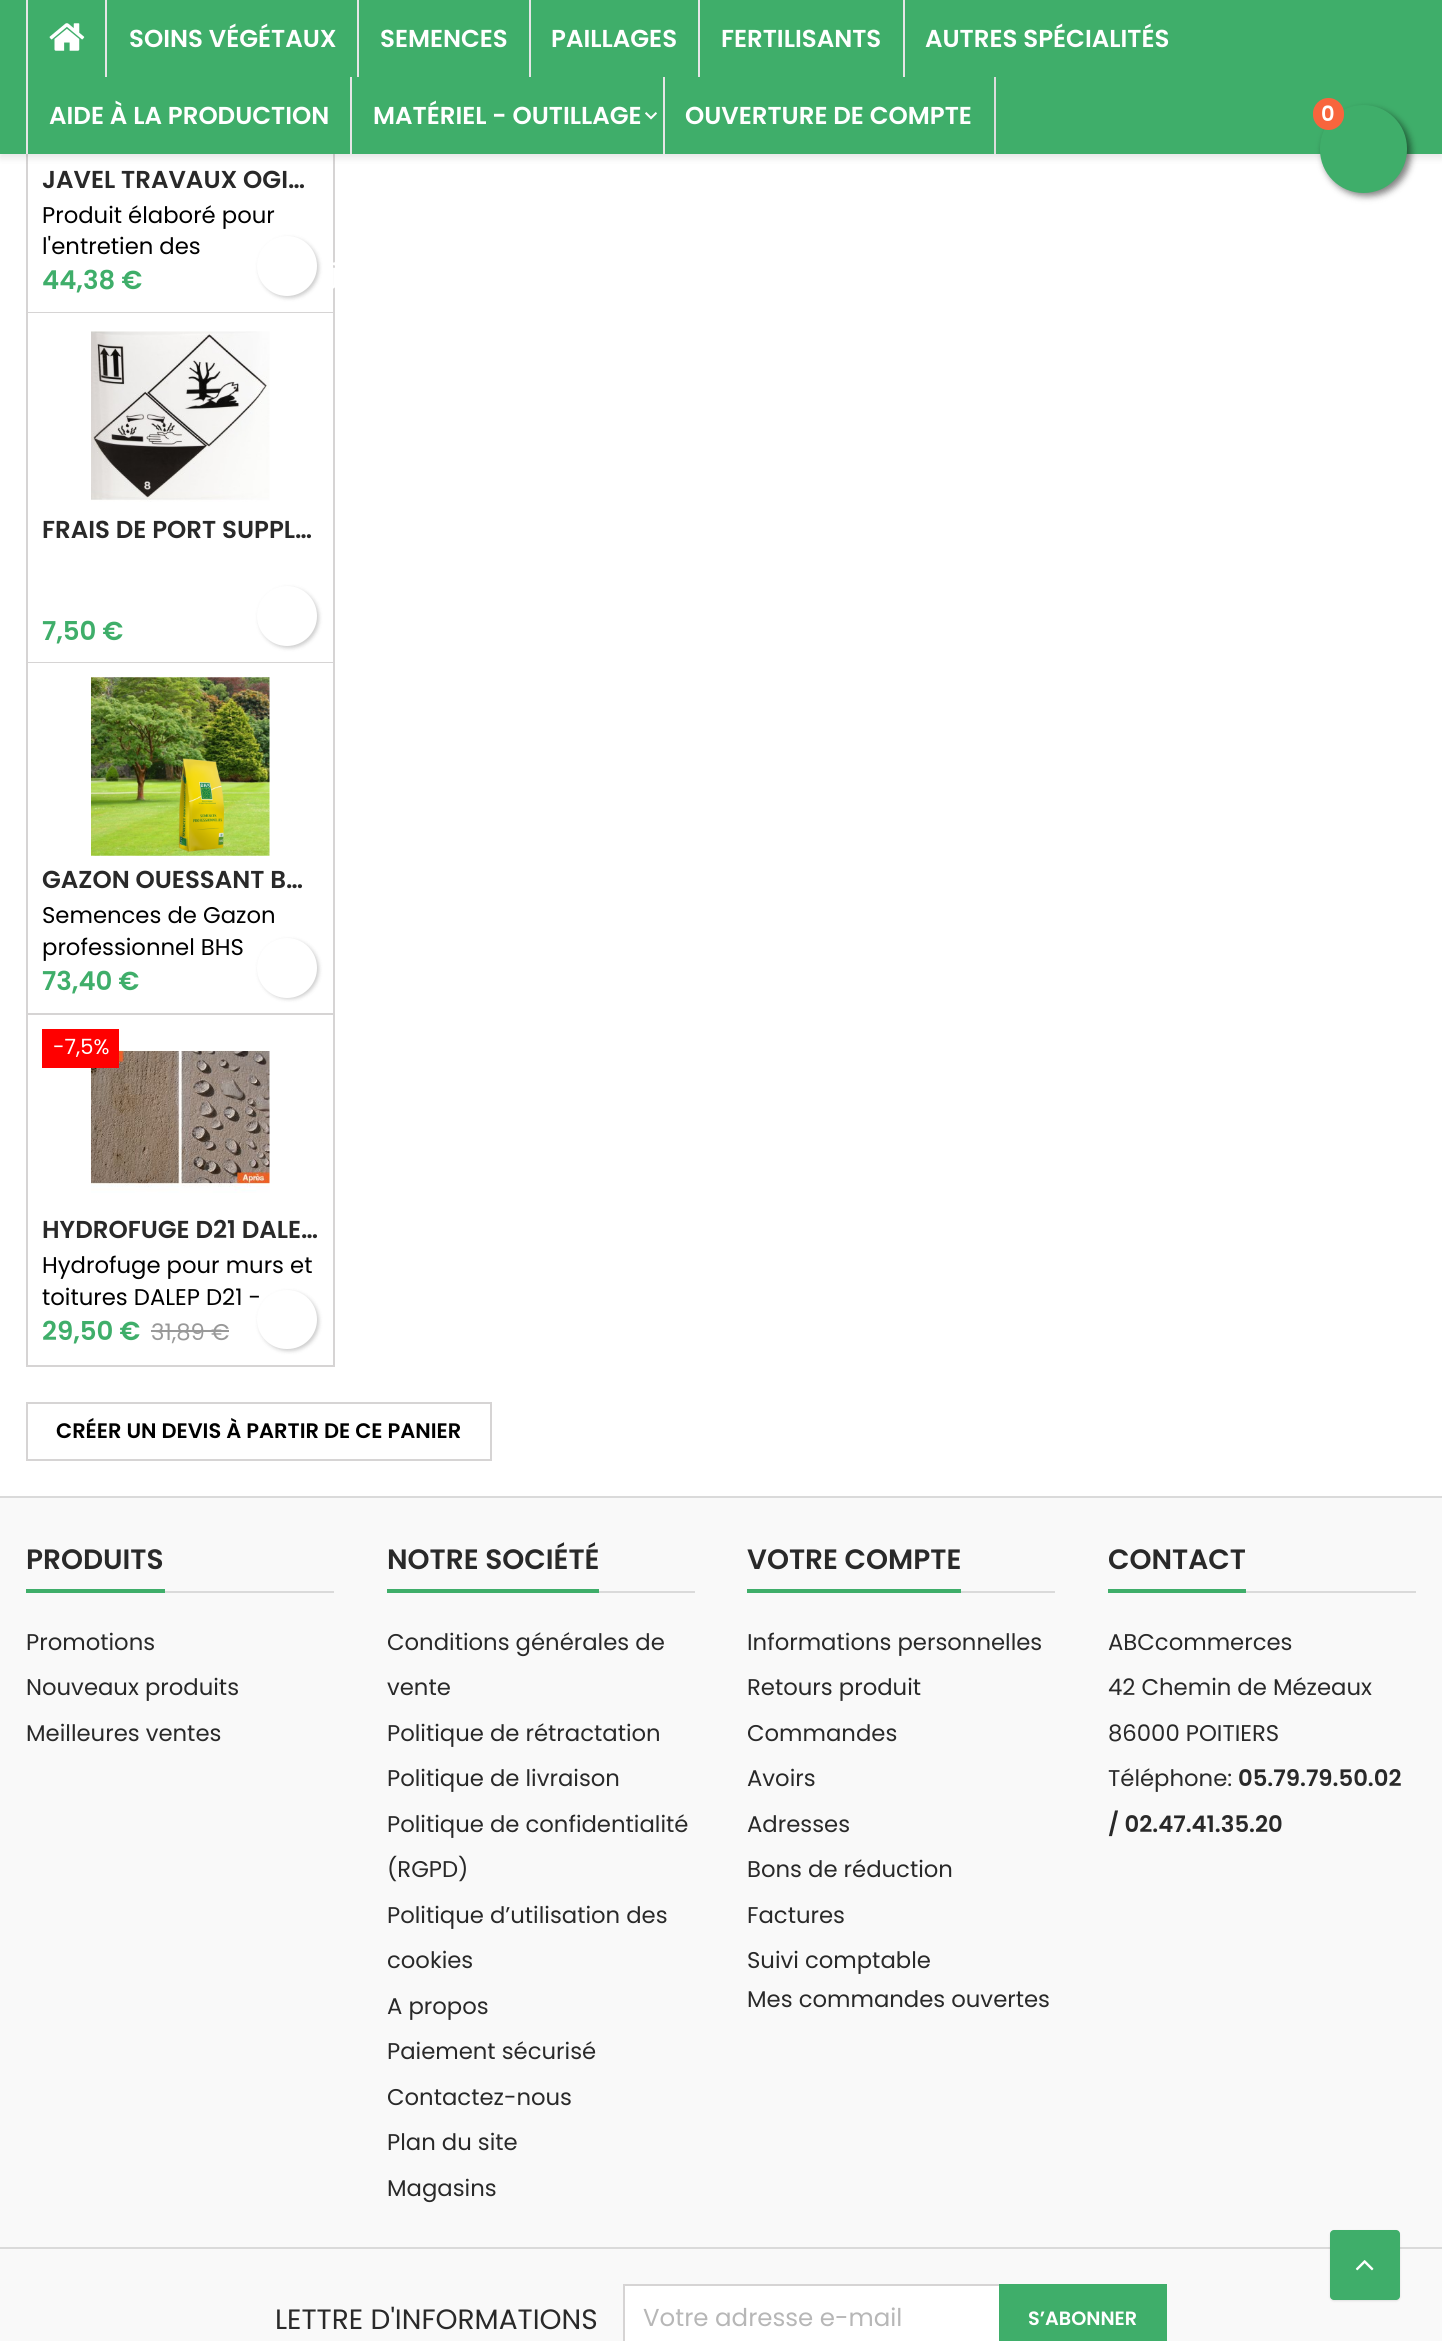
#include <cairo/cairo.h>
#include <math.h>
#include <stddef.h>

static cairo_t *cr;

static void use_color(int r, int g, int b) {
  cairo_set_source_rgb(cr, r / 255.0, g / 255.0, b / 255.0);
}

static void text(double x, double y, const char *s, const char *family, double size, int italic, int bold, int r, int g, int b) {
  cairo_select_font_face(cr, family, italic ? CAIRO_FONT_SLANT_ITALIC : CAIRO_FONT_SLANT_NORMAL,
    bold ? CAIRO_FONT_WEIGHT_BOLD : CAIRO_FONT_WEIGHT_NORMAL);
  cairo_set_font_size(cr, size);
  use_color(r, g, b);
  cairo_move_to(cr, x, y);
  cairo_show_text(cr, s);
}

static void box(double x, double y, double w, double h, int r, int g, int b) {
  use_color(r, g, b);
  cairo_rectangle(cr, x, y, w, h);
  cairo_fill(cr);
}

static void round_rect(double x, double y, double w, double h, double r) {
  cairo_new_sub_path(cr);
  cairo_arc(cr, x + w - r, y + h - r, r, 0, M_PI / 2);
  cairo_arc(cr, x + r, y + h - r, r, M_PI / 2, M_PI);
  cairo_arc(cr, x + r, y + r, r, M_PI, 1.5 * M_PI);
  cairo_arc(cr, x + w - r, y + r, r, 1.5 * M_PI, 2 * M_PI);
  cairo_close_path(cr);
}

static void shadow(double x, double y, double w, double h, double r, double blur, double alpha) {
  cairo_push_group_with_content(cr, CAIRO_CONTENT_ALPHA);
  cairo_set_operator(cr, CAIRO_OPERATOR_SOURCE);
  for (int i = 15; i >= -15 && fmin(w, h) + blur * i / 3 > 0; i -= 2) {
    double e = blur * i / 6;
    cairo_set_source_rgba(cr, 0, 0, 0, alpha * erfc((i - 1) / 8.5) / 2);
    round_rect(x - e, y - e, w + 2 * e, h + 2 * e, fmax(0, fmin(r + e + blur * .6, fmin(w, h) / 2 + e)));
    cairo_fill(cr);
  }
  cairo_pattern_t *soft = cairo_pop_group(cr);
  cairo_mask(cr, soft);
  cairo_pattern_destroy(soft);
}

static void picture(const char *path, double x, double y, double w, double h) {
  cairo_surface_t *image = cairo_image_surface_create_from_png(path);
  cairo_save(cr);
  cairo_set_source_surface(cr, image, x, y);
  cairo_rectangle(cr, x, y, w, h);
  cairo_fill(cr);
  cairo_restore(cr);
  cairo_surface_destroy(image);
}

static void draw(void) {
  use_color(255, 255, 255);
  cairo_paint(cr);
  box(333, 154, 2, 1213, 214, 212, 212);
  box(26, 312, 308, 1, 214, 212, 212);
  box(26, 154, 2, 159, 214, 212, 212);
  use_color(0, 0, 0);
  shadow(0, 4, 1442, 154, 0, 3.5, 0.1);
  box(0, 0, 1442, 154, 63, 174, 106);
  box(26, 0, 2, 154, 230, 230, 230);
  picture("img_01.png", 49, 23, 36, 28);
  box(105, 0, 2, 77, 230, 230, 230);
  box(357, 0, 2, 77, 230, 230, 230);
  box(529, 0, 2, 77, 230, 230, 230);
  box(698, 0, 2, 77, 230, 230, 230);
  box(903, 0, 2, 77, 230, 230, 230);
  box(350, 77, 2, 77, 230, 230, 230);
  picture("img_02.png", 645, 112, 12, 8);
  box(994, 77, 2, 77, 221, 221, 221);
  box(663, 77, 2, 77, 230, 230, 230);
  use_color(0, 0, 0);
  shadow(1323, 109, 88, 87, 43.5, 3.5, 0.5);
  use_color(63, 174, 106);
  round_rect(1320, 105, 87, 88, 43.5);
  cairo_fill(cr);
  use_color(248, 101, 61);
  round_rect(1313, 98, 31, 32, 15.5);
  cairo_fill(cr);
  use_color(0, 0, 0);
  shadow(259, 238, 60, 60, 30, 2, 0.2);
  use_color(255, 255, 255);
  cairo_arc(cr, 287, 266, 30, 0, 2 * M_PI);
  cairo_fill(cr);
  box(26, 662, 308, 1, 214, 212, 212);
  box(26, 313, 2, 350, 214, 212, 212);
  picture("img_03.png", 91, 331, 179, 171);
  use_color(0, 0, 0);
  shadow(259, 588, 60, 60, 30, 2, 0.2);
  use_color(255, 255, 255);
  cairo_arc(cr, 287, 616, 30, 0, 2 * M_PI);
  cairo_fill(cr);
  box(26, 1013, 308, 2, 214, 212, 212);
  box(26, 663, 2, 352, 214, 212, 212);
  picture("img_04.png", 91, 677, 179, 179);
  use_color(0, 0, 0);
  shadow(259, 940, 60, 59, 29.5, 2, 0.2);
  use_color(255, 255, 255);
  cairo_arc(cr, 287, 968, 30, 0, 2 * M_PI);
  cairo_fill(cr);
  box(26, 1365, 308, 2, 214, 212, 212);
  box(26, 1015, 2, 352, 214, 212, 212);
  picture("img_05.png", 91, 1050, 179, 143);
  box(42, 1029, 77, 39, 255, 0, 0);
  box(151, 1330, 78, 2, 153, 153, 153);
  use_color(0, 0, 0);
  shadow(259, 1292, 60, 59, 29.5, 2, 0.2);
  cairo_rectangle(cr, 27, 1403, 464, 57);
  use_color(214, 212, 212);
  cairo_stroke(cr);
  box(0, 1498, 1442, 843, 249, 249, 249);
  box(0, 1496, 1442, 2, 218, 218, 218);
  box(165, 1591, 169, 2, 218, 218, 218);
  box(26, 1589, 139, 4, 63, 174, 106);
  box(599, 1591, 96, 2, 218, 218, 218);
  box(387, 1589, 212, 4, 63, 174, 106);
  box(961, 1591, 94, 2, 218, 218, 218);
  box(747, 1589, 214, 4, 63, 174, 106);
  box(1246, 1591, 170, 2, 218, 218, 218);
  box(1108, 1589, 138, 4, 63, 174, 106);
  box(0, 2247, 1442, 2, 218, 218, 218);
  use_color(0, 0, 0);
  shadow(1330, 2231, 70, 70, 4, 1, 0.1);
  use_color(63, 174, 106);
  round_rect(1330, 2230, 70, 70, 4);
  cairo_fill(cr);
  picture("img_06.png", 1355, 2260, 19, 11);
  box(625, 2286, 374, 55, 255, 255, 255);
  box(999, 2284, 168, 57, 63, 174, 106);
  text(129, 47, "SOINS VÉGÉTAUX", "Poppins SemiBold", 24.5, 0, 0, 255, 255, 255);
  text(380, 47, "SEMENCES", "Poppins SemiBold", 24.5, 0, 0, 255, 255, 255);
  text(551, 47, "PAILLAGES", "Poppins SemiBold", 24.5, 0, 0, 255, 255, 255);
  text(721, 47, "FERTILISANTS", "Poppins SemiBold", 24.5, 0, 0, 255, 255, 255);
  text(925, 47, "AUTRES SPÉCIALITÉS", "Poppins SemiBold", 24.5, 0, 0, 255, 255, 255);
  text(49, 124, "AIDE À LA PRODUCTION", "Poppins SemiBold", 24.5, 0, 0, 255, 255, 255);
  text(373, 124, "MATÉRIEL - OUTILLAGE", "Poppins SemiBold", 24.5, 0, 0, 255, 255, 255);
  text(685, 124, "OUVERTURE DE COMPTE", "Poppins SemiBold", 24.5, 0, 0, 255, 255, 255);
  text(1321, 121, "0", "Poppins SemiBold", 21, 0, 0, 255, 255, 255);
  text(42, 188, "JAVEL TRAVAUX OGI…", "Poppins SemiBold", 24.5, 0, 0, 41, 41, 41);
  text(42, 223, "Produit élaboré pour", "Poppins", 22.75, 0, 0, 0, 0, 0);
  text(42, 254, "l'entretien des", "Poppins", 22.75, 0, 0, 0, 0, 0);
  text(42, 289, "44,38 €", "Poppins SemiBold", 26, 0, 0, 63, 174, 106);
  text(42, 538, "FRAIS DE PORT SUPPL…", "Poppins SemiBold", 24.5, 0, 0, 41, 41, 41);
  text(42, 640, "7,50 €", "Poppins SemiBold", 26, 0, 0, 63, 174, 106);
  text(42, 888, "GAZON OUESSANT B…", "Poppins SemiBold", 24.5, 0, 0, 41, 41, 41);
  text(42, 923, "Semences de Gazon", "Poppins", 22.75, 0, 0, 0, 0, 0);
  text(42, 955, "professionnel BHS", "Poppins", 22.75, 0, 0, 0, 0, 0);
  text(42, 990, "73,40 €", "Poppins SemiBold", 26, 0, 0, 63, 174, 106);
  text(53, 1054, "-7,5%", "Poppins", 21, 0, 0, 255, 255, 255);
  text(42, 1238, "HYDROFUGE D21 DALE…", "Poppins SemiBold", 24.5, 0, 0, 41, 41, 41);
  text(42, 1273, "Hydrofuge pour murs et", "Poppins", 22.75, 0, 0, 0, 0, 0);
  text(42, 1305, "toitures DALEP D21 -", "Poppins", 22.75, 0, 0, 0, 0, 0);
  text(42, 1340, "29,50 €", "Poppins SemiBold", 26, 0, 0, 63, 174, 106);
  text(151, 1340, "31,89 €", "Poppins", 22.75, 0, 0, 153, 153, 153);
  use_color(255, 255, 255);
  round_rect(257, 1290, 60, 59, 29.5);
  cairo_fill(cr);
  text(56, 1438, "CRÉER UN DEVIS À PARTIR DE CE PANIER", "Poppins SemiBold", 21, 0, 0, 0, 0, 0);
  text(331, 282, "j", "Poppins", 26, 0, 0, 255, 255, 255);
  text(26, 1569, "PRODUITS", "Poppins SemiBold", 28, 0, 0, 41, 41, 41);
  text(26, 1650, "Promotions", "Poppins", 22.75, 0, 0, 41, 41, 41);
  text(26, 1695, "Nouveaux produits", "Poppins", 22.75, 0, 0, 41, 41, 41);
  text(26, 1741, "Meilleures ventes", "Poppins", 22.75, 0, 0, 41, 41, 41);
  text(387, 1569, "NOTRE SOCIÉTÉ", "Poppins SemiBold", 28, 0, 0, 41, 41, 41);
  text(387, 1650, "Conditions générales de", "Poppins", 22.75, 0, 0, 41, 41, 41);
  text(387, 1695, "vente", "Poppins", 22.75, 0, 0, 41, 41, 41);
  text(387, 1741, "Politique de rétractation", "Poppins", 22.75, 0, 0, 41, 41, 41);
  text(387, 1786, "Politique de livraison", "Poppins", 22.75, 0, 0, 41, 41, 41);
  text(387, 1832, "Politique de confidentialité", "Poppins", 22.75, 0, 0, 41, 41, 41);
  text(387, 1877, "(RGPD)", "Poppins", 22.75, 0, 0, 41, 41, 41);
  text(387, 1923, "Politique d’utilisation des", "Poppins", 22.75, 0, 0, 41, 41, 41);
  text(387, 1968, "cookies", "Poppins", 22.75, 0, 0, 41, 41, 41);
  text(387, 2014, "A propos", "Poppins", 22.75, 0, 0, 41, 41, 41);
  text(387, 2059, "Paiement sécurisé", "Poppins", 22.75, 0, 0, 41, 41, 41);
  text(387, 2105, "Contactez-nous", "Poppins", 22.75, 0, 0, 41, 41, 41);
  text(387, 2150, "Plan du site", "Poppins", 22.75, 0, 0, 41, 41, 41);
  text(387, 2196, "Magasins", "Poppins", 22.75, 0, 0, 41, 41, 41);
  text(747, 1569, "VOTRE COMPTE", "Poppins SemiBold", 28, 0, 0, 41, 41, 41);
  text(747, 1650, "Informations personnelles", "Poppins", 22.75, 0, 0, 41, 41, 41);
  text(747, 1695, "Retours produit", "Poppins", 22.75, 0, 0, 41, 41, 41);
  text(747, 1741, "Commandes", "Poppins", 22.75, 0, 0, 41, 41, 41);
  text(747, 1786, "Avoirs", "Poppins", 22.75, 0, 0, 41, 41, 41);
  text(747, 1832, "Adresses", "Poppins", 22.75, 0, 0, 41, 41, 41);
  text(747, 1877, "Bons de réduction", "Poppins", 22.75, 0, 0, 41, 41, 41);
  text(747, 1923, "Factures", "Poppins", 22.75, 0, 0, 41, 41, 41);
  text(747, 1968, "Suivi comptable", "Poppins", 22.75, 0, 0, 41, 41, 41);
  text(747, 2007, "Mes commandes ouvertes", "Poppins", 22.75, 0, 0, 41, 41, 41);
  text(1108, 1569, "CONTACT", "Poppins SemiBold", 28, 0, 0, 41, 41, 41);
  text(1108, 1650, "ABCcommerces", "Poppins", 22.75, 0, 0, 41, 41, 41);
  text(1108, 1695, "42 Chemin de Mézeaux", "Poppins", 22.75, 0, 0, 41, 41, 41);
  text(1108, 1741, "86000 POITIERS", "Poppins", 22.75, 0, 0, 41, 41, 41);
  text(1108, 1786, "Téléphone:", "Poppins", 22.75, 0, 0, 41, 41, 41);
  text(1238, 1786, "05.79.79.50.02", "Poppins SemiBold", 22.75, 0, 0, 41, 41, 41);
  text(1108, 1832, "/ 02.47.41.35.20", "Poppins SemiBold", 22.75, 0, 0, 41, 41, 41);
  text(275, 2329, "LETTRE D'INFORMATIONS", "Poppins", 28, 0, 0, 41, 41, 41);
  text(1028, 2325, "S’ABONNER", "Poppins SemiBold", 19.25, 0, 0, 255, 255, 255);
  cairo_save(cr);
  cairo_rectangle(cr, 623, 2284, 376, 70);
  cairo_clip(cr);
  cairo_rectangle(cr, 624, 2285, 444, 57);
  use_color(214, 212, 212);
  cairo_stroke(cr);
  cairo_restore(cr);
  text(643, 2326, "Votre adresse e-mail", "Poppins", 24.5, 0, 0, 183, 183, 183);
}

int main(void) {
  cairo_surface_t *surface = cairo_image_surface_create(CAIRO_FORMAT_RGB24, 1442, 2341);
  cr = cairo_create(surface);
  cairo_font_options_t *options = cairo_font_options_create();
  cairo_font_options_set_hint_metrics(options, CAIRO_HINT_METRICS_OFF);
  cairo_font_options_set_hint_style(options, CAIRO_HINT_STYLE_NONE);
  cairo_set_font_options(cr, options);
  cairo_set_miter_limit(cr, 4);
  draw();
  cairo_surface_write_to_png(surface, "out.png");
  cairo_font_options_destroy(options);
  cairo_destroy(cr);
  cairo_surface_destroy(surface);
  return 0;
}
